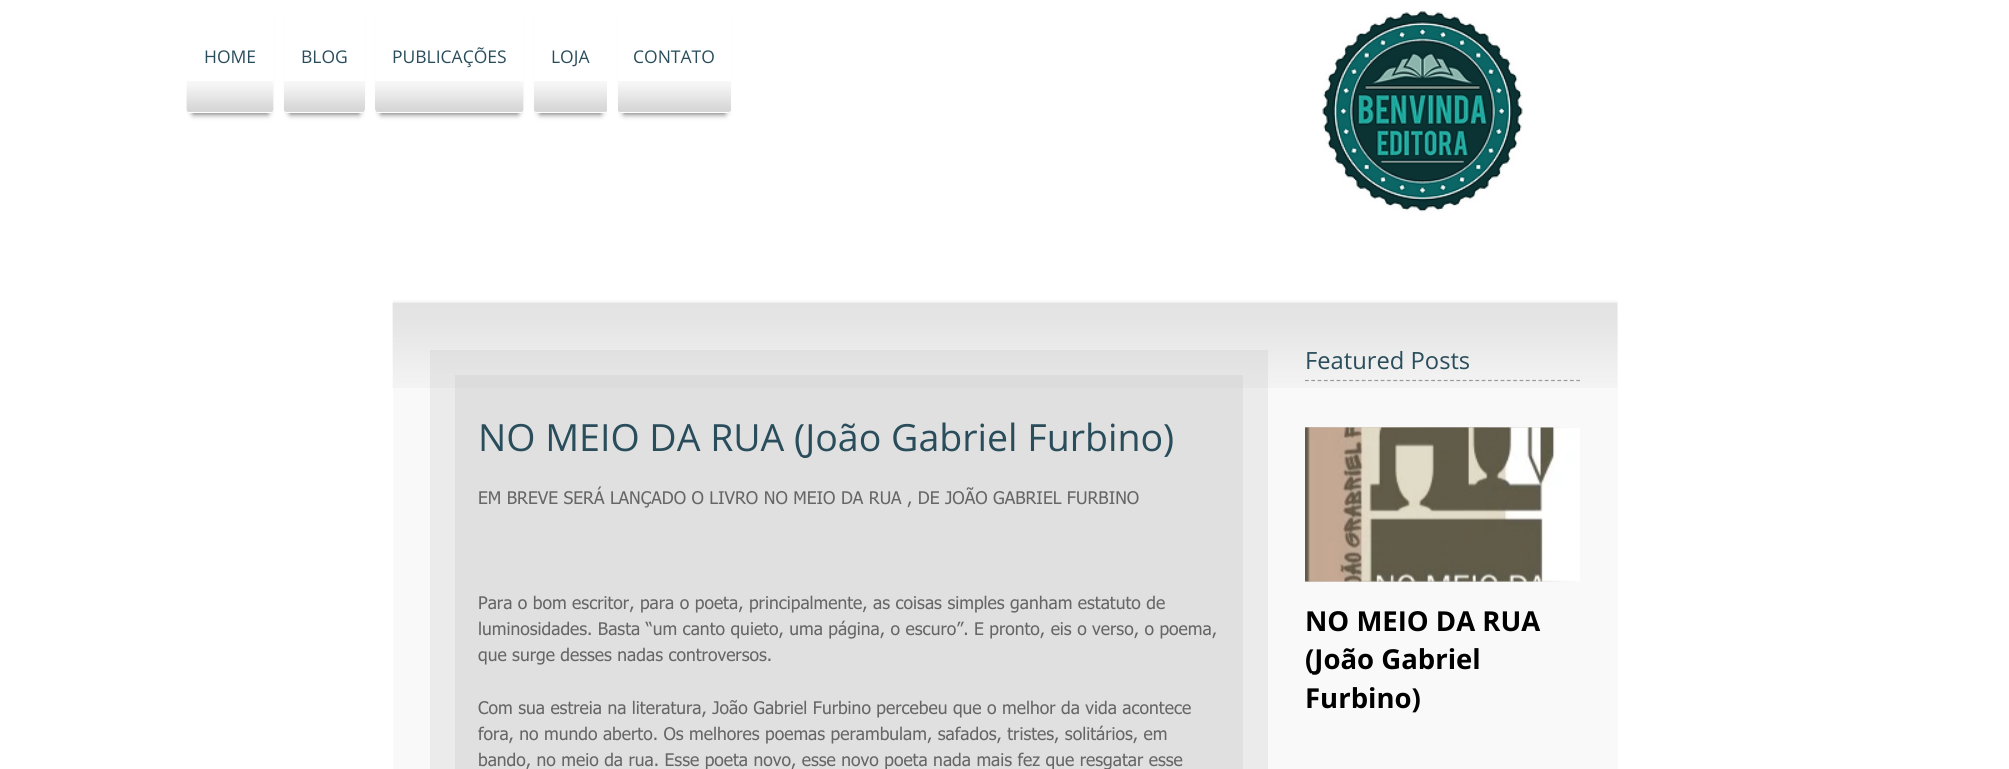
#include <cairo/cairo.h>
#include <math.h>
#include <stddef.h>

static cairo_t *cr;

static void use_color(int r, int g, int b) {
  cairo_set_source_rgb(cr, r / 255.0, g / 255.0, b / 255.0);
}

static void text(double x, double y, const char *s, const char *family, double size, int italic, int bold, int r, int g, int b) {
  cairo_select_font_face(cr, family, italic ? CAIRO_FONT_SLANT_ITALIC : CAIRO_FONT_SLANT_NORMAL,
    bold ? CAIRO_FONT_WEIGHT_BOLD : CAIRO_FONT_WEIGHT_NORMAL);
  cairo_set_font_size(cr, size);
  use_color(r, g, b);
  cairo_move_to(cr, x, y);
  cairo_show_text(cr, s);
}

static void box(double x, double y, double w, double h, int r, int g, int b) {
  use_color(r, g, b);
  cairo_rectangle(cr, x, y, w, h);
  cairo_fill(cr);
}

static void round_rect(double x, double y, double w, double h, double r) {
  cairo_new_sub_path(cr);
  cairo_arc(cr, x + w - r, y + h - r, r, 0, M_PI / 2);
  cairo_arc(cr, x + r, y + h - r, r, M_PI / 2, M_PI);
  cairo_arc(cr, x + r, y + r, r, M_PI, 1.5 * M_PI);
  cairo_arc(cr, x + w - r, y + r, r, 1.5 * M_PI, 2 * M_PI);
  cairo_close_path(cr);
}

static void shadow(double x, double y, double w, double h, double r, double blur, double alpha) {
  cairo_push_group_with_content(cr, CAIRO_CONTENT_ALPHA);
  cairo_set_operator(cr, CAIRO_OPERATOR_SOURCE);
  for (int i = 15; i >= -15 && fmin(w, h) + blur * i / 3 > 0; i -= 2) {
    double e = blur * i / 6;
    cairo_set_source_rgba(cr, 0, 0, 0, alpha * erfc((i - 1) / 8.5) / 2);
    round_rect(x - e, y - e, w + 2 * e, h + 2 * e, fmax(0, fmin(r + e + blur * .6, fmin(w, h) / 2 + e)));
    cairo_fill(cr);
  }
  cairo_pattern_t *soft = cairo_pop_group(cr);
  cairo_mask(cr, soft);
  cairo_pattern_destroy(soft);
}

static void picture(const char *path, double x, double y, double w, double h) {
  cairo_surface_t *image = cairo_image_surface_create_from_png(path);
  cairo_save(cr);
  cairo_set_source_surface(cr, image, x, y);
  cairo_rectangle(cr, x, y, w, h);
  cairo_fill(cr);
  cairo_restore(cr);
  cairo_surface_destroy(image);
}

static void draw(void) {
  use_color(255, 255, 255);
  cairo_paint(cr);
  use_color(0, 0, 0);
  shadow(193, 14, 75, 100, 0, 3, 0.6);
  use_color(255, 255, 255);
  round_rect(186, 0, 88, 113, 4);
  cairo_fill(cr);
  picture("img_01.png", 186, 81, 88, 31);
  use_color(0, 0, 0);
  shadow(290, 14, 69, 100, 0, 3, 0.6);
  use_color(255, 255, 255);
  round_rect(284, 0, 81, 113, 4);
  cairo_fill(cr);
  picture("img_02.png", 284, 81, 81, 31);
  use_color(0, 0, 0);
  shadow(381, 14, 137, 100, 0, 3, 0.6);
  use_color(255, 255, 255);
  round_rect(375, 0, 149, 113, 4);
  cairo_fill(cr);
  picture("img_03.png", 375, 81, 149, 31);
  use_color(0, 0, 0);
  shadow(540, 14, 61, 100, 0, 3, 0.6);
  use_color(255, 255, 255);
  round_rect(534, 0, 74, 113, 4);
  cairo_fill(cr);
  picture("img_04.png", 534, 81, 73, 31);
  use_color(0, 0, 0);
  shadow(624, 14, 101, 100, 0, 3, 0.6);
  use_color(255, 255, 255);
  round_rect(618, 0, 113, 113, 4);
  cairo_fill(cr);
  picture("img_05.png", 618, 81, 113, 31);
  picture("img_06.png", 1322, 11, 201, 201);
  box(393, 300, 1225, 469, 249, 249, 249);
  picture("img_07.png", 392, 302, 1226, 86);
  cairo_set_source_rgba(cr, 0.753, 0.753, 0.753, 0.25);
  cairo_rectangle(cr, 430, 350, 838, 419);
  cairo_fill(cr);
  cairo_rectangle(cr, 455, 375, 788, 394);
  cairo_fill(cr);
  cairo_new_path(cr);
  cairo_move_to(cr, 1305, 380.5);
  cairo_line_to(cr, 1580, 380.5);
  use_color(153, 153, 153);
  cairo_set_line_width(cr, 1.2);
  cairo_set_dash(cr, (double[]){3.75, 2.56}, 2, 0);
  cairo_stroke(cr);
  picture("img_08.png", 1305, 427, 275, 155);
  picture("img_09.png", 1305, 427, 275, 155);
  text(204, 63, "HOME", "Open Sans", 17.5, 0, 0, 41, 77, 91);
  text(301, 63, "BLOG", "Open Sans", 17.5, 0, 0, 41, 77, 91);
  text(392, 63, "PUBLICAÇÕES", "Open Sans", 17.5, 0, 0, 41, 77, 91);
  text(551, 63, "LOJA", "Open Sans", 17.5, 0, 0, 41, 77, 91);
  text(633, 63, "CONTATO", "Open Sans", 17.5, 0, 0, 41, 77, 91);
  text(478, 451, "NO MEIO DA RUA (João Gabriel Furbino)", "Open Sans", 37.5, 0, 0, 41, 77, 91);
  text(478, 504, "EM BREVE SERÁ LANÇADO O LIVRO NO MEIO DA RUA , DE JOÃO GABRIEL FURBINO", "tahoma", 17.5, 0, 0, 102, 102, 102);
  text(478, 609, "Para o bom escritor, para o poeta, principalmente, as coisas simples ganham estatuto de", "tahoma", 17.5, 0, 0, 102, 102, 102);
  text(478, 635, "luminosidades. Basta “um canto quieto, uma página, o escuro”. E pronto, eis o verso, o poema,", "tahoma", 17.5, 0, 0, 102, 102, 102);
  text(478, 661, "que surge desses nadas controversos.", "tahoma", 17.5, 0, 0, 102, 102, 102);
  text(478, 714, "Com sua estreia na literatura, João Gabriel Furbino percebeu que o melhor da vida acontece", "tahoma", 17.5, 0, 0, 102, 102, 102);
  text(478, 740, "fora, no mundo aberto. Os melhores poemas perambulam, safados, tristes, solitários, em", "tahoma", 17.5, 0, 0, 102, 102, 102);
  text(478, 766, "bando, no meio da rua. Esse poeta novo, esse novo poeta nada mais fez que resgatar esse", "tahoma", 17.5, 0, 0, 102, 102, 102);
  text(1305, 369, "Featured Posts", "Open Sans", 23.75, 0, 0, 41, 77, 91);
  text(1305, 631, "NO MEIO DA RUA", "Open Sans", 27.5, 0, 1, 0, 0, 0);
  text(1305, 669, "(João Gabriel", "Open Sans", 27.5, 0, 1, 0, 0, 0);
  text(1305, 708, "Furbino)", "Open Sans", 27.5, 0, 1, 0, 0, 0);
}

int main(void) {
  cairo_surface_t *surface = cairo_image_surface_create(CAIRO_FORMAT_RGB24, 2009, 769);
  cr = cairo_create(surface);
  cairo_font_options_t *options = cairo_font_options_create();
  cairo_font_options_set_hint_metrics(options, CAIRO_HINT_METRICS_OFF);
  cairo_font_options_set_hint_style(options, CAIRO_HINT_STYLE_NONE);
  cairo_set_font_options(cr, options);
  cairo_set_miter_limit(cr, 4);
  draw();
  cairo_surface_write_to_png(surface, "out.png");
  cairo_font_options_destroy(options);
  cairo_destroy(cr);
  cairo_surface_destroy(surface);
  return 0;
}
